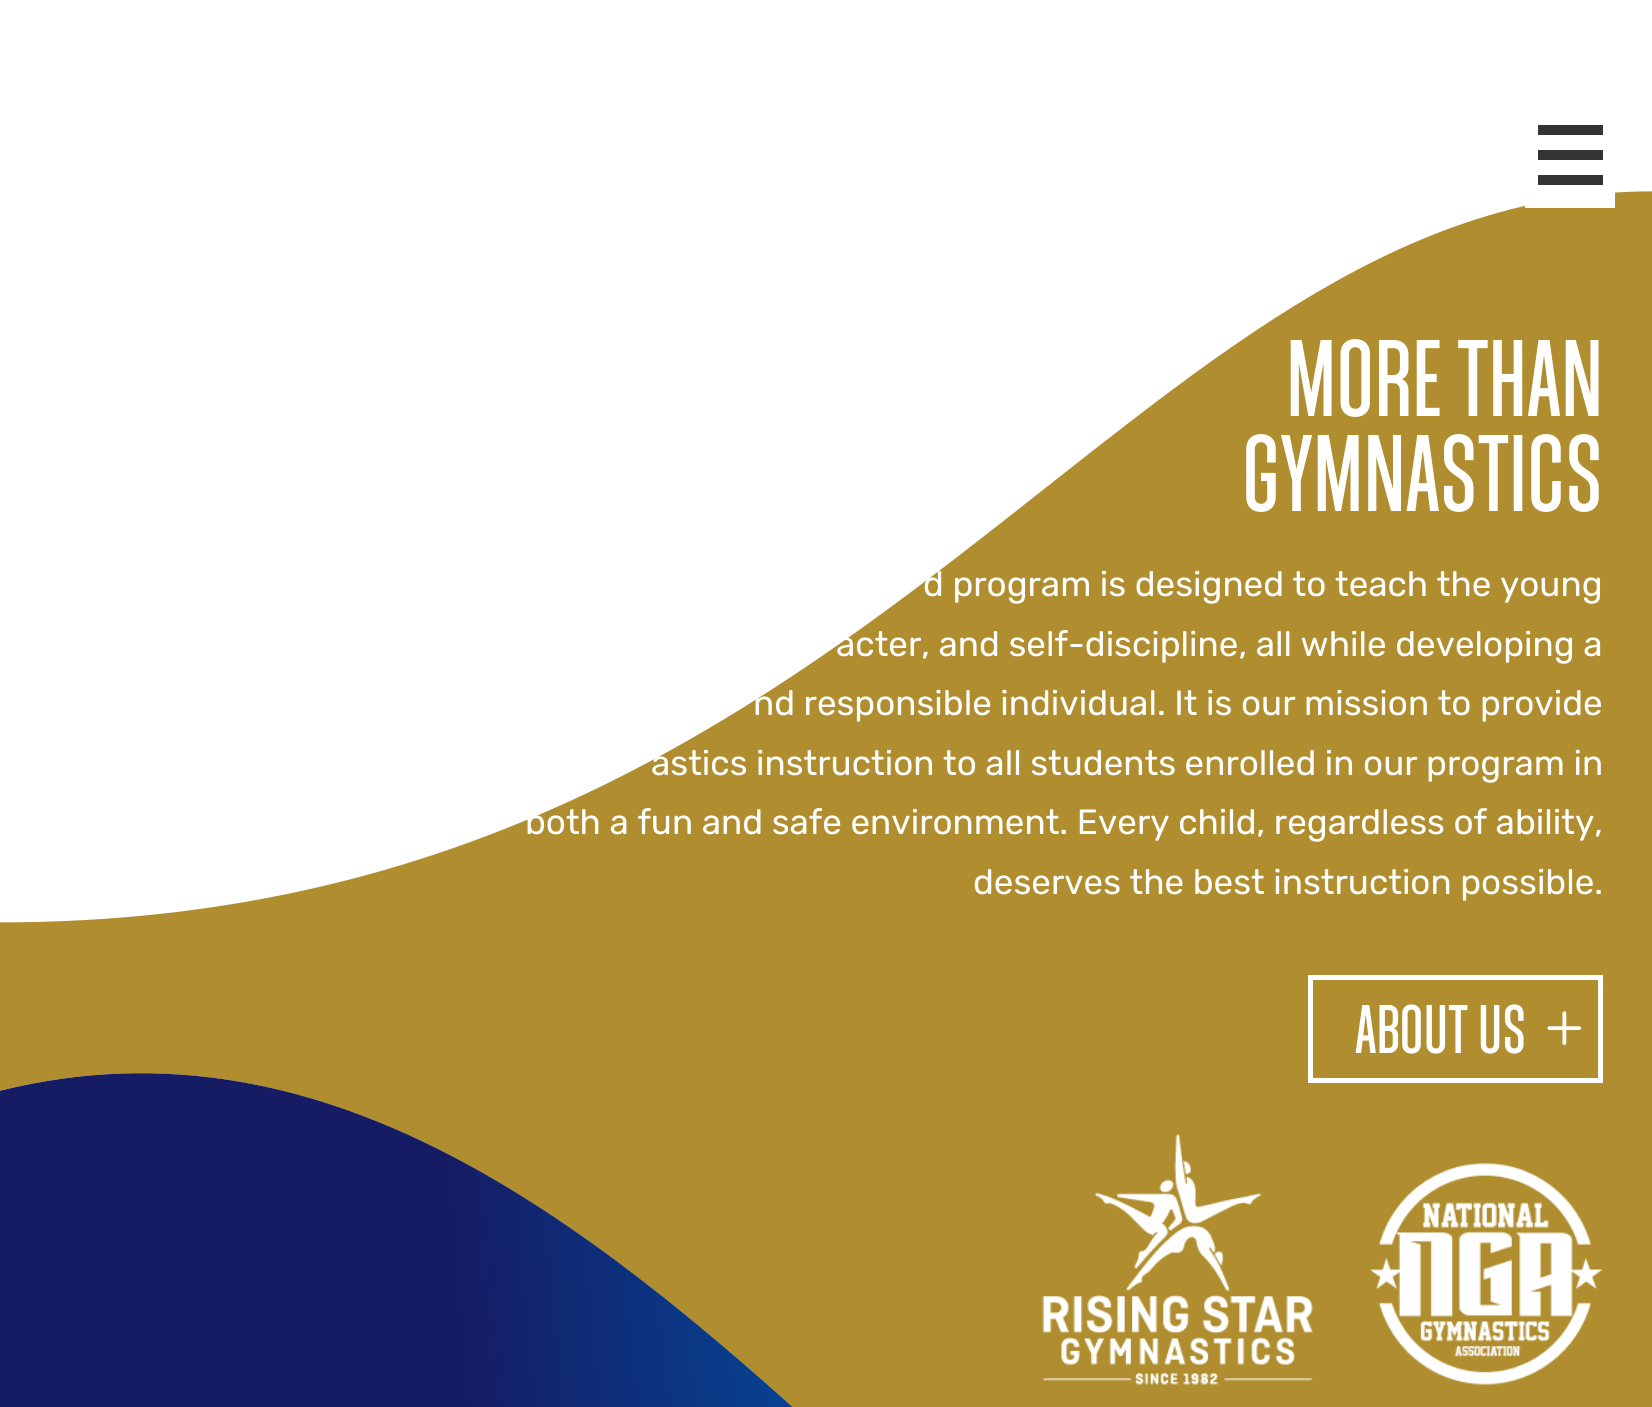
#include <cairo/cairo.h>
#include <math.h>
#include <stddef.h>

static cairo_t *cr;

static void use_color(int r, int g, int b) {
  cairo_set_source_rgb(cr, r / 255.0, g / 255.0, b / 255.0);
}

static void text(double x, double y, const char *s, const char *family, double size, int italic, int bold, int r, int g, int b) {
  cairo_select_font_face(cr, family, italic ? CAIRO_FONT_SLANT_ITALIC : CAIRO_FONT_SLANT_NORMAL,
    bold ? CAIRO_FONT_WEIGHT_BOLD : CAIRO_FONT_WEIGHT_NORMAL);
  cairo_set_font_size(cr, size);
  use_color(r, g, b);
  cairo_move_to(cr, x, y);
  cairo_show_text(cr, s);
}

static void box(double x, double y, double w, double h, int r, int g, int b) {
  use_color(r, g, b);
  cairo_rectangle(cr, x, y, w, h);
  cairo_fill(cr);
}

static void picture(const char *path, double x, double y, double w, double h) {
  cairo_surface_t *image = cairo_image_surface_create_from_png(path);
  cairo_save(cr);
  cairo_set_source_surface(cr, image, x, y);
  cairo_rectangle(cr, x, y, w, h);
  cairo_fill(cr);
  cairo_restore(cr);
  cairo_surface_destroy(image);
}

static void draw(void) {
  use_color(255, 255, 255);
  cairo_paint(cr);
  picture("img_01.png", 0, 191, 1652, 1216);
  cairo_rectangle(cr, 1531.5, 109.5, 77, 92);
  use_color(255, 255, 255);
  cairo_set_line_width(cr, 13);
  cairo_stroke(cr);
  box(1588, 193, 14, 2, 255, 255, 255);
  box(1538, 125, 65, 10, 51, 51, 51);
  box(1538, 150, 65, 10, 51, 51, 51);
  box(1538, 175, 65, 10, 51, 51, 51);
  cairo_rectangle(cr, 1310.5, 977.5, 290, 103);
  use_color(255, 255, 255);
  cairo_set_line_width(cr, 5);
  cairo_stroke(cr);
  picture("img_02.png", 1547, 1011, 35, 34);
  picture("img_03.png", 1042, 1134, 271, 251);
  picture("img_04.png", 1370, 1163, 233, 222);
  text(1286, 416, "MORE THAN", "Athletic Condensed", 95, 0, 0, 255, 255, 255);
  text(1242, 511, "GYMNASTICS", "Athletic Condensed", 95, 0, 0, 255, 255, 255);
  text(923, 596, "d program is designed to teach the young", "Rubik", 35, 0, 0, 255, 255, 255);
  text(836, 656, "acter, and self-discipline, all while developing a", "Rubik", 35, 0, 0, 255, 255, 255);
  text(753, 715, "nd responsible individual. It is our mission to provide", "Rubik", 35, 0, 0, 255, 255, 255);
  text(651, 775, "astics instruction to all students enrolled in our program in", "Rubik", 35, 0, 0, 255, 255, 255);
  text(525, 834, "both a fun and safe environment. Every child, regardless of ability,", "Rubik", 35, 0, 0, 255, 255, 255);
  text(973, 894, "deserves the best instruction possible.", "Rubik", 35, 0, 0, 255, 255, 255);
  text(1355, 1053, "ABOUT US", "Athletic Condensed", 60, 0, 0, 255, 255, 255);
}

int main(void) {
  cairo_surface_t *surface = cairo_image_surface_create(CAIRO_FORMAT_RGB24, 1652, 1407);
  cr = cairo_create(surface);
  cairo_font_options_t *options = cairo_font_options_create();
  cairo_font_options_set_hint_metrics(options, CAIRO_HINT_METRICS_OFF);
  cairo_font_options_set_hint_style(options, CAIRO_HINT_STYLE_NONE);
  cairo_set_font_options(cr, options);
  cairo_set_miter_limit(cr, 4);
  draw();
  cairo_surface_write_to_png(surface, "out.png");
  cairo_font_options_destroy(options);
  cairo_destroy(cr);
  cairo_surface_destroy(surface);
  return 0;
}
